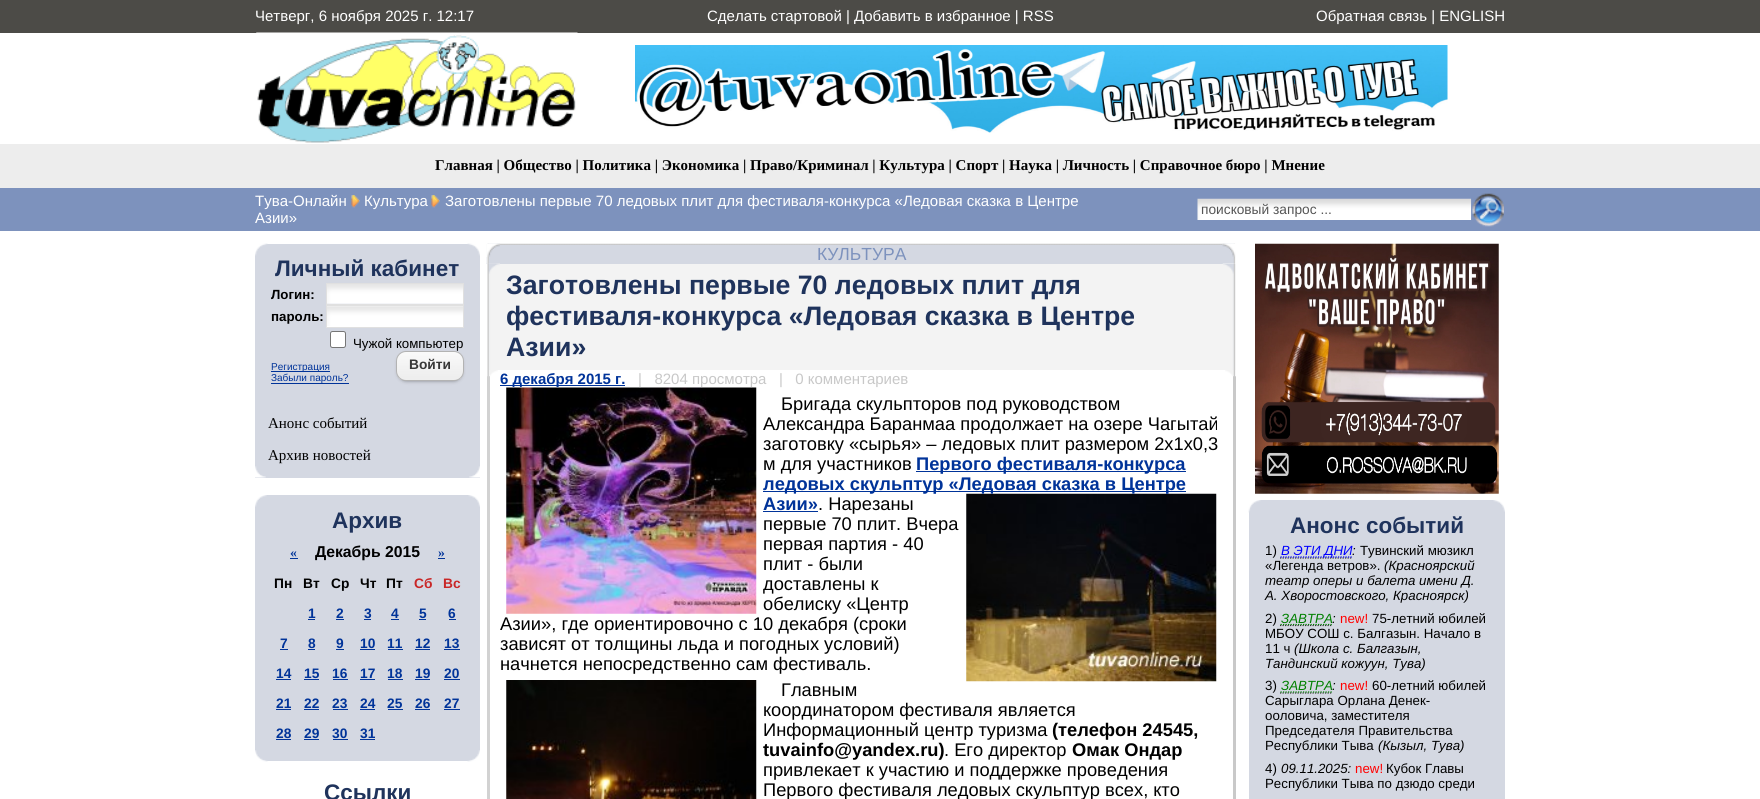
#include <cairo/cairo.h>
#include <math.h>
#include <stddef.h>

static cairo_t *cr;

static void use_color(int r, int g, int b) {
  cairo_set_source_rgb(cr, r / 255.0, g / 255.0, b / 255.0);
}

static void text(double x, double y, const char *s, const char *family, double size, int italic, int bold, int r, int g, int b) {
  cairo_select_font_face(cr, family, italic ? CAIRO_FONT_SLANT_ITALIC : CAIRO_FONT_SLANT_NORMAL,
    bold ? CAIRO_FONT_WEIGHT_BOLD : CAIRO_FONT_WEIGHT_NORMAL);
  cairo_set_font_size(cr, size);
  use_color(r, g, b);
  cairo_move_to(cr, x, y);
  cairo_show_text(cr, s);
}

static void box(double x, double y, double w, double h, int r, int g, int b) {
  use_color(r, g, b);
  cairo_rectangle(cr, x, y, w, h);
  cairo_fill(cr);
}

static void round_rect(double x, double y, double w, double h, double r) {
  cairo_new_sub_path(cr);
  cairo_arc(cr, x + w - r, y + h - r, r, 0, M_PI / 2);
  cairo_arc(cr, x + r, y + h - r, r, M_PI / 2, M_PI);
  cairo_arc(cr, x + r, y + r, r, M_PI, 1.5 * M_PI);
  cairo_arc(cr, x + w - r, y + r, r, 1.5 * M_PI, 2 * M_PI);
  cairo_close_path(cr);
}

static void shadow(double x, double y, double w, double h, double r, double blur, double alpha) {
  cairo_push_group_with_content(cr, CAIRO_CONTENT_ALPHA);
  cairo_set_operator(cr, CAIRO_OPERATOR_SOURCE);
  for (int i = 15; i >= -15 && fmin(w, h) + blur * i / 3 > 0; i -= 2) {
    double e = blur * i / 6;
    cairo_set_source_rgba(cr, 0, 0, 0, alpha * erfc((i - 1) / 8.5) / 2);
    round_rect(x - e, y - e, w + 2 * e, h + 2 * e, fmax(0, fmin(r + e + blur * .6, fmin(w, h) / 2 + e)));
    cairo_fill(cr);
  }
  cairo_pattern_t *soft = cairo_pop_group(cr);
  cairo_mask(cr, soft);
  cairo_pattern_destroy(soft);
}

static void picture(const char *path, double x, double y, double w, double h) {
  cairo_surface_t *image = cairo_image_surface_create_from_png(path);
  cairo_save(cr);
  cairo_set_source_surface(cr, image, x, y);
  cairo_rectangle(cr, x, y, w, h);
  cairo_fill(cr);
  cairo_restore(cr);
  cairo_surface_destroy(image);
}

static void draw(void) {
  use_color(255, 255, 255);
  cairo_paint(cr);
  box(0, 0, 1760, 33, 76, 75, 71);
  picture("img_01.png", 256, 32, 322, 111);
  picture("img_02.png", 635, 45, 813, 88);
  box(0, 144, 1760, 44, 237, 237, 237);
  box(0, 188, 1760, 43, 125, 146, 189);
  picture("img_03.png", 351, 195, 9, 13);
  picture("img_03.png", 431, 195, 9, 13);
  picture("img_04.png", 1197, 198, 275, 22);
  picture("img_05.png", 1471, 193, 33, 34);
  box(255, 244, 225, 234, 212, 216, 226);
  picture("img_06.png", 255, 243, 13, 13);
  picture("img_07.png", 467, 243, 13, 13);
  picture("img_08.png", 327, 284, 136, 20);
  cairo_rectangle(cr, 326.5, 283.5, 137, 21);
  use_color(224, 224, 224);
  cairo_set_line_width(cr, 1);
  cairo_stroke(cr);
  box(327, 306, 136, 21, 255, 255, 255);
  picture("img_09.png", 327, 306, 136, 20);
  cairo_rectangle(cr, 326.5, 305.5, 137, 22);
  use_color(224, 224, 224);
  cairo_stroke(cr);
  use_color(255, 255, 255);
  round_rect(330.5, 331.5, 15, 16, 2);
  cairo_fill_preserve(cr);
  use_color(118, 118, 118);
  cairo_stroke(cr);
  box(271, 371, 59, 1, 0, 51, 153);
  box(271, 383, 78, 1, 0, 51, 153);
  use_color(0, 0, 0);
  shadow(400, 356, 60, 23, 6, 2.5, 1);
  picture("img_10.png", 396, 352, 68, 28);
  round_rect(396.5, 351.5, 67, 29, 9.5);
  use_color(179, 179, 179);
  cairo_stroke(cr);
  picture("img_11.png", 255, 466, 11, 12);
  picture("img_12.png", 469, 466, 11, 12);
  box(255, 495, 225, 266, 212, 216, 226);
  picture("img_13.png", 255, 495, 12, 12);
  picture("img_14.png", 468, 495, 12, 12);
  box(290, 558, 8, 1, 0, 51, 153);
  box(438, 558, 7, 1, 0, 51, 153);
  box(308, 619, 7, 1, 0, 51, 153);
  box(336, 619, 8, 1, 0, 51, 153);
  box(364, 619, 7, 1, 0, 51, 153);
  box(391, 619, 8, 1, 0, 51, 153);
  box(419, 619, 7, 1, 0, 51, 153);
  box(449, 619, 7, 1, 0, 51, 153);
  box(280, 649, 8, 1, 0, 51, 153);
  box(308, 649, 7, 1, 0, 51, 153);
  box(336, 649, 8, 1, 0, 51, 153);
  box(360, 649, 15, 1, 0, 51, 153);
  box(388, 649, 15, 1, 0, 51, 153);
  box(415, 649, 15, 1, 0, 51, 153);
  box(444, 649, 16, 1, 0, 51, 153);
  box(276, 679, 15, 1, 0, 51, 153);
  box(304, 679, 15, 1, 0, 51, 153);
  box(333, 679, 15, 1, 0, 51, 153);
  box(360, 679, 15, 1, 0, 51, 153);
  box(388, 679, 15, 1, 0, 51, 153);
  box(415, 679, 15, 1, 0, 51, 153);
  box(444, 679, 16, 1, 0, 51, 153);
  box(276, 709, 15, 1, 0, 51, 153);
  box(304, 709, 15, 1, 0, 51, 153);
  box(333, 709, 15, 1, 0, 51, 153);
  box(360, 709, 15, 1, 0, 51, 153);
  box(388, 709, 15, 1, 0, 51, 153);
  box(415, 709, 15, 1, 0, 51, 153);
  box(444, 709, 16, 1, 0, 51, 153);
  box(276, 739, 15, 1, 0, 51, 153);
  box(304, 739, 15, 1, 0, 51, 153);
  box(333, 739, 15, 1, 0, 51, 153);
  box(360, 739, 15, 1, 0, 51, 153);
  picture("img_15.png", 255, 750, 13, 12);
  picture("img_16.png", 467, 750, 13, 12);
  box(486, 244, 737, 20, 212, 216, 226);
  picture("img_17.png", 486, 243, 14, 21);
  picture("img_18.png", 486, 243, 14, 14);
  picture("img_21.png", 500, 243, 723, 2);
  picture("img_19.png", 1222, 243, 14, 21);
  picture("img_20.png", 1222, 243, 14, 14);
  picture("img_22.png", 486, 263, 14, 107);
  picture("img_23.png", 488, 263, 12, 11);
  box(500, 264, 723, 106, 243, 243, 243);
  box(1235, 264, 1, 106, 243, 243, 243);
  picture("img_24.png", 1222, 263, 13, 107);
  picture("img_25.png", 1223, 264, 11, 10);
  box(487, 370, 3, 429, 210, 210, 210);
  picture("img_26.png", 487, 370, 11, 7);
  box(500, 385, 125, 1, 0, 51, 153);
  box(1233, 370, 3, 429, 201, 201, 201);
  picture("img_27.png", 1225, 370, 11, 7);
  picture("img_28.png", 506, 387, 251, 227);
  box(916, 471, 270, 1, 0, 51, 153);
  box(763, 491, 423, 1, 0, 51, 153);
  box(763, 511, 55, 1, 0, 51, 153);
  picture("img_29.png", 966, 493, 251, 189);
  picture("img_30.png", 506, 680, 251, 119);
  picture("img_31.png", 1255, 243, 244, 251);
  box(1249, 500, 256, 299, 212, 216, 226);
  picture("img_32.png", 1248, 500, 13, 13);
  picture("img_14.png", 1493, 500, 12, 12);
  cairo_new_path(cr);
  cairo_move_to(cr, 1280, 558);
  cairo_line_to(cr, 1352.5, 558);
  use_color(51, 51, 51);
  cairo_set_line_width(cr, 1.2);
  cairo_set_dash(cr, (double[]){1.25, 1.25}, 2, 0);
  cairo_stroke(cr);
  cairo_new_path(cr);
  cairo_move_to(cr, 1280.5, 557);
  cairo_line_to(cr, 1352.5, 557);
  use_color(0, 0, 255);
  cairo_stroke(cr);
  cairo_new_path(cr);
  cairo_move_to(cr, 1280, 625.5);
  cairo_line_to(cr, 1332.5, 625.5);
  use_color(51, 51, 51);
  cairo_stroke(cr);
  cairo_new_path(cr);
  cairo_move_to(cr, 1280.5, 624.5);
  cairo_line_to(cr, 1332.5, 624.5);
  use_color(0, 128, 0);
  cairo_stroke(cr);
  cairo_new_path(cr);
  cairo_move_to(cr, 1280, 693);
  cairo_line_to(cr, 1332.5, 693);
  use_color(51, 51, 51);
  cairo_stroke(cr);
  cairo_new_path(cr);
  cairo_move_to(cr, 1280.5, 692);
  cairo_line_to(cr, 1332.5, 692);
  use_color(0, 128, 0);
  cairo_stroke(cr);
  text(255, 21, "Четверг, 6 ноября 2025 г. 12:17", "Liberation Sans", 15, 0, 0, 255, 255, 255);
  text(707, 21, "Сделать стартовой | Добавить в избранное | RSS", "Liberation Sans", 15, 0, 0, 255, 255, 255);
  text(1316, 21, "Обратная связь | ENGLISH", "Liberation Sans", 15, 0, 0, 255, 255, 255);
  text(435, 170, "Главная | Общество | Политика | Экономика | Право/Криминал | Культура | Спорт | Наука | Личность | Справочное бюро | Мнение", "Liberation Serif", 15, 0, 1, 0, 0, 0);
  text(255, 206, "Тува-Онлайн", "Liberation Sans", 15, 0, 0, 255, 255, 255);
  text(364, 206, "Культура", "Liberation Sans", 15, 0, 0, 255, 255, 255);
  text(445, 206, "Заготовлены первые 70 ледовых плит для фестиваля-конкурса «Ледовая сказка в Центре", "Liberation Sans", 15, 0, 0, 255, 255, 255);
  text(255, 223, "Азии»", "Liberation Sans", 15, 0, 0, 255, 255, 255);
  text(1201, 214, "поисковый запрос ...", "Liberation Sans", 13.75, 0, 0, 85, 85, 85);
  text(275, 276, "Личный кабинет", "Liberation Sans", 22.5, 0, 1, 31, 51, 92);
  text(271, 299, "Логин:", "Liberation Sans", 13.3, 0, 1, 0, 0, 0);
  text(271, 321, "пароль:", "Liberation Sans", 13.3, 0, 1, 0, 0, 0);
  text(353, 348, "Чужой компьютер", "Liberation Sans", 13.3, 0, 0, 0, 0, 0);
  text(271, 370, "Регистрация", "Liberation Sans", 10, 0, 0, 0, 51, 153);
  text(271, 381, "Забыли пароль?", "Liberation Sans", 10, 0, 0, 0, 51, 153);
  text(409, 369, "Войти", "Liberation Sans", 13.75, 0, 1, 56, 56, 56);
  text(268, 428, "Анонс событий", "Liberation Serif", 15, 0, 0, 0, 0, 0);
  text(268, 460, "Архив новостей", "Liberation Serif", 15, 0, 0, 0, 0, 0);
  text(332, 528, "Архив", "Liberation Sans", 22.5, 0, 1, 31, 51, 92);
  text(290, 557, "«", "Liberation Serif", 13.75, 0, 1, 0, 51, 153);
  text(315, 557, "Декабрь 2015", "Liberation Sans", 15.75, 0, 1, 0, 0, 0);
  text(438, 557, "»", "Liberation Serif", 13.75, 0, 1, 0, 51, 153);
  text(274, 588, "Пн", "Liberation Sans", 13.75, 0, 1, 0, 0, 0);
  text(303, 588, "Вт", "Liberation Sans", 13.75, 0, 1, 0, 0, 0);
  text(331, 588, "Ср", "Liberation Sans", 13.75, 0, 1, 0, 0, 0);
  text(360, 588, "Чт", "Liberation Sans", 13.75, 0, 1, 0, 0, 0);
  text(386, 588, "Пт", "Liberation Sans", 13.75, 0, 1, 0, 0, 0);
  text(414, 588, "Сб", "Liberation Sans", 13.75, 0, 1, 201, 39, 39);
  text(443, 588, "Вс", "Liberation Sans", 13.75, 0, 1, 201, 39, 39);
  text(308, 618, "1", "Liberation Sans", 13.75, 0, 1, 0, 51, 153);
  text(336, 618, "2", "Liberation Sans", 13.75, 0, 1, 0, 51, 153);
  text(364, 618, "3", "Liberation Sans", 13.75, 0, 1, 0, 51, 153);
  text(391, 618, "4", "Liberation Sans", 13.75, 0, 1, 0, 51, 153);
  text(419, 618, "5", "Liberation Sans", 13.75, 0, 1, 0, 51, 153);
  text(448, 618, "6", "Liberation Sans", 13.75, 0, 1, 0, 51, 153);
  text(280, 648, "7", "Liberation Sans", 13.75, 0, 1, 0, 51, 153);
  text(308, 648, "8", "Liberation Sans", 13.75, 0, 1, 0, 51, 153);
  text(336, 648, "9", "Liberation Sans", 13.75, 0, 1, 0, 51, 153);
  text(360, 648, "10", "Liberation Sans", 13.75, 0, 1, 0, 51, 153);
  text(387, 648, "11", "Liberation Sans", 13.75, 0, 1, 0, 51, 153);
  text(415, 648, "12", "Liberation Sans", 13.75, 0, 1, 0, 51, 153);
  text(444, 648, "13", "Liberation Sans", 13.75, 0, 1, 0, 51, 153);
  text(276, 678, "14", "Liberation Sans", 13.75, 0, 1, 0, 51, 153);
  text(304, 678, "15", "Liberation Sans", 13.75, 0, 1, 0, 51, 153);
  text(332, 678, "16", "Liberation Sans", 13.75, 0, 1, 0, 51, 153);
  text(360, 678, "17", "Liberation Sans", 13.75, 0, 1, 0, 51, 153);
  text(387, 678, "18", "Liberation Sans", 13.75, 0, 1, 0, 51, 153);
  text(415, 678, "19", "Liberation Sans", 13.75, 0, 1, 0, 51, 153);
  text(444, 678, "20", "Liberation Sans", 13.75, 0, 1, 0, 51, 153);
  text(276, 708, "21", "Liberation Sans", 13.75, 0, 1, 0, 51, 153);
  text(304, 708, "22", "Liberation Sans", 13.75, 0, 1, 0, 51, 153);
  text(332, 708, "23", "Liberation Sans", 13.75, 0, 1, 0, 51, 153);
  text(360, 708, "24", "Liberation Sans", 13.75, 0, 1, 0, 51, 153);
  text(387, 708, "25", "Liberation Sans", 13.75, 0, 1, 0, 51, 153);
  text(415, 708, "26", "Liberation Sans", 13.75, 0, 1, 0, 51, 153);
  text(444, 708, "27", "Liberation Sans", 13.75, 0, 1, 0, 51, 153);
  text(276, 738, "28", "Liberation Sans", 13.75, 0, 1, 0, 51, 153);
  text(304, 738, "29", "Liberation Sans", 13.75, 0, 1, 0, 51, 153);
  text(332, 738, "30", "Liberation Sans", 13.75, 0, 1, 0, 51, 153);
  text(360, 738, "31", "Liberation Sans", 13.75, 0, 1, 0, 51, 153);
  text(324, 800, "Ссылки", "Liberation Sans", 22.5, 0, 1, 31, 51, 92);
  text(817, 260, "КУЛЬТУРА", "Liberation Sans", 17.5, 0, 0, 125, 146, 189);
  text(506, 294, "Заготовлены первые 70 ледовых плит для", "Liberation Sans", 26.7, 0, 1, 31, 51, 92);
  text(506, 325, "фестиваля-конкурса «Ледовая сказка в Центре", "Liberation Sans", 26.7, 0, 1, 31, 51, 92);
  text(506, 356, "Азии»", "Liberation Sans", 26.7, 0, 1, 31, 51, 92);
  text(500, 384, "6 декабря 2015 г.", "Liberation Sans", 15, 0, 1, 0, 51, 153);
  text(638, 384, "|   8204 просмотра   |   0 комментариев", "Liberation Sans", 15, 0, 0, 200, 200, 200);
  text(781, 410, "Бригада скульпторов под руководством", "Liberation Sans", 18.3, 0, 0, 0, 0, 0);
  text(763, 430, "Александра Баранмаа продолжает на озере Чагытай", "Liberation Sans", 18.3, 0, 0, 0, 0, 0);
  text(763, 450, "заготовку «сырья» – ледовых плит размером 2х1х0,3", "Liberation Sans", 18.3, 0, 0, 0, 0, 0);
  text(763, 470, "м для участников", "Liberation Sans", 18.3, 0, 0, 0, 0, 0);
  text(916, 470, "Первого фестиваля-конкурса", "Liberation Sans", 18.3, 0, 1, 0, 51, 153);
  text(763, 490, "ледовых скульптур «Ледовая сказка в Центре", "Liberation Sans", 18.3, 0, 1, 0, 51, 153);
  text(763, 510, "Азии»", "Liberation Sans", 18.3, 0, 1, 0, 51, 153);
  text(818, 510, ". Нарезаны", "Liberation Sans", 18.3, 0, 0, 0, 0, 0);
  text(763, 530, "первые 70 плит. Вчера", "Liberation Sans", 18.3, 0, 0, 0, 0, 0);
  text(763, 550, "первая партия - 40", "Liberation Sans", 18.3, 0, 0, 0, 0, 0);
  text(763, 570, "плит - были", "Liberation Sans", 18.3, 0, 0, 0, 0, 0);
  text(763, 590, "доставлены к", "Liberation Sans", 18.3, 0, 0, 0, 0, 0);
  text(763, 610, "обелиску «Центр", "Liberation Sans", 18.3, 0, 0, 0, 0, 0);
  text(500, 630, "Азии», где ориентировочно с 10 декабря (сроки", "Liberation Sans", 18.3, 0, 0, 0, 0, 0);
  text(500, 650, "зависят от толщины льда и погодных условий)", "Liberation Sans", 18.3, 0, 0, 0, 0, 0);
  text(500, 670, "начнется непосредственно сам фестиваль.", "Liberation Sans", 18.3, 0, 0, 0, 0, 0);
  text(781, 696, "Главным", "Liberation Sans", 18.3, 0, 0, 0, 0, 0);
  text(763, 716, "координатором фестиваля является", "Liberation Sans", 18.3, 0, 0, 0, 0, 0);
  text(763, 736, "Информационный центр туризма", "Liberation Sans", 18.3, 0, 0, 0, 0, 0);
  text(1052, 736, "(телефон 24545,", "Liberation Sans", 18.3, 0, 1, 0, 0, 0);
  text(763, 756, "tuvainfo@yandex.ru)", "Liberation Sans", 18.3, 0, 1, 0, 0, 0);
  text(944, 756, ". Его директор", "Liberation Sans", 18.3, 0, 0, 0, 0, 0);
  text(1072, 756, "Омак Ондар", "Liberation Sans", 18.3, 0, 1, 0, 0, 0);
  text(763, 776, "привлекает к участию и поддержке проведения", "Liberation Sans", 18.3, 0, 0, 0, 0, 0);
  text(763, 796, "Первого фестиваля ледовых скульптур всех, кто", "Liberation Sans", 18.3, 0, 0, 0, 0, 0);
  text(1290, 533, "Анонс событий", "Liberation Sans", 22.5, 0, 1, 31, 51, 92);
  text(1265, 555, "1)", "Liberation Sans", 13.3, 0, 0, 0, 0, 0);
  text(1281, 555, "В ЭТИ ДНИ", "Liberation Sans", 13.3, 1, 0, 0, 0, 255);
  text(1352, 555, ":", "Liberation Sans", 13.3, 1, 0, 0, 0, 0);
  text(1360, 555, "Тувинский мюзикл", "Liberation Sans", 13.3, 0, 0, 0, 0, 0);
  text(1265, 570, "«Легенда ветров».", "Liberation Sans", 13.3, 0, 0, 0, 0, 0);
  text(1384, 570, "(Красноярский", "Liberation Sans", 13.3, 1, 0, 0, 0, 0);
  text(1265, 585, "театр оперы и балета имени Д.", "Liberation Sans", 13.3, 1, 0, 0, 0, 0);
  text(1265, 600, "А. Хворостовского, Красноярск)", "Liberation Sans", 13.3, 1, 0, 0, 0, 0);
  text(1265, 623, "2)", "Liberation Sans", 13.3, 0, 0, 0, 0, 0);
  text(1281, 623, "ЗАВТРА", "Liberation Sans", 13.3, 1, 0, 0, 128, 0);
  text(1332, 623, ":", "Liberation Sans", 13.3, 1, 0, 0, 0, 0);
  text(1340, 623, "new!", "Liberation Sans", 13.3, 0, 0, 255, 0, 0);
  text(1372, 623, "75-летний юбилей", "Liberation Sans", 13.3, 0, 0, 0, 0, 0);
  text(1265, 638, "МБОУ СОШ с. Балгазын. Начало в", "Liberation Sans", 13.3, 0, 0, 0, 0, 0);
  text(1265, 653, "11 ч", "Liberation Sans", 13.3, 0, 0, 0, 0, 0);
  text(1294, 653, "(Школа с. Балгазын,", "Liberation Sans", 13.3, 1, 0, 0, 0, 0);
  text(1265, 668, "Тандинский кожуун, Тува)", "Liberation Sans", 13.3, 1, 0, 0, 0, 0);
  text(1265, 690, "3)", "Liberation Sans", 13.3, 0, 0, 0, 0, 0);
  text(1281, 690, "ЗАВТРА", "Liberation Sans", 13.3, 1, 0, 0, 128, 0);
  text(1332, 690, ":", "Liberation Sans", 13.3, 1, 0, 0, 0, 0);
  text(1340, 690, "new!", "Liberation Sans", 13.3, 0, 0, 255, 0, 0);
  text(1372, 690, "60-летний юбилей", "Liberation Sans", 13.3, 0, 0, 0, 0, 0);
  text(1265, 705, "Сарыглара Орлана Денек-", "Liberation Sans", 13.3, 0, 0, 0, 0, 0);
  text(1265, 720, "ооловича, заместителя", "Liberation Sans", 13.3, 0, 0, 0, 0, 0);
  text(1265, 735, "Председателя Правительства", "Liberation Sans", 13.3, 0, 0, 0, 0, 0);
  text(1265, 750, "Республики Тыва", "Liberation Sans", 13.3, 0, 0, 0, 0, 0);
  text(1378, 750, "(Кызыл, Тува)", "Liberation Sans", 13.3, 1, 0, 0, 0, 0);
  text(1265, 773, "4)", "Liberation Sans", 13.3, 0, 0, 0, 0, 0);
  text(1281, 773, "09.11.2025:", "Liberation Sans", 13.3, 1, 0, 0, 0, 0);
  text(1355, 773, "new!", "Liberation Sans", 13.3, 0, 0, 255, 0, 0);
  text(1386, 773, "Кубок Главы", "Liberation Sans", 13.3, 0, 0, 0, 0, 0);
  text(1265, 788, "Республики Тыва по дзюдо среди", "Liberation Sans", 13.3, 0, 0, 0, 0, 0);
}

int main(void) {
  cairo_surface_t *surface = cairo_image_surface_create(CAIRO_FORMAT_RGB24, 1760, 799);
  cr = cairo_create(surface);
  cairo_font_options_t *options = cairo_font_options_create();
  cairo_font_options_set_hint_metrics(options, CAIRO_HINT_METRICS_OFF);
  cairo_font_options_set_hint_style(options, CAIRO_HINT_STYLE_NONE);
  cairo_set_font_options(cr, options);
  cairo_set_miter_limit(cr, 4);
  draw();
  cairo_surface_write_to_png(surface, "out.png");
  cairo_font_options_destroy(options);
  cairo_destroy(cr);
  cairo_surface_destroy(surface);
  return 0;
}
